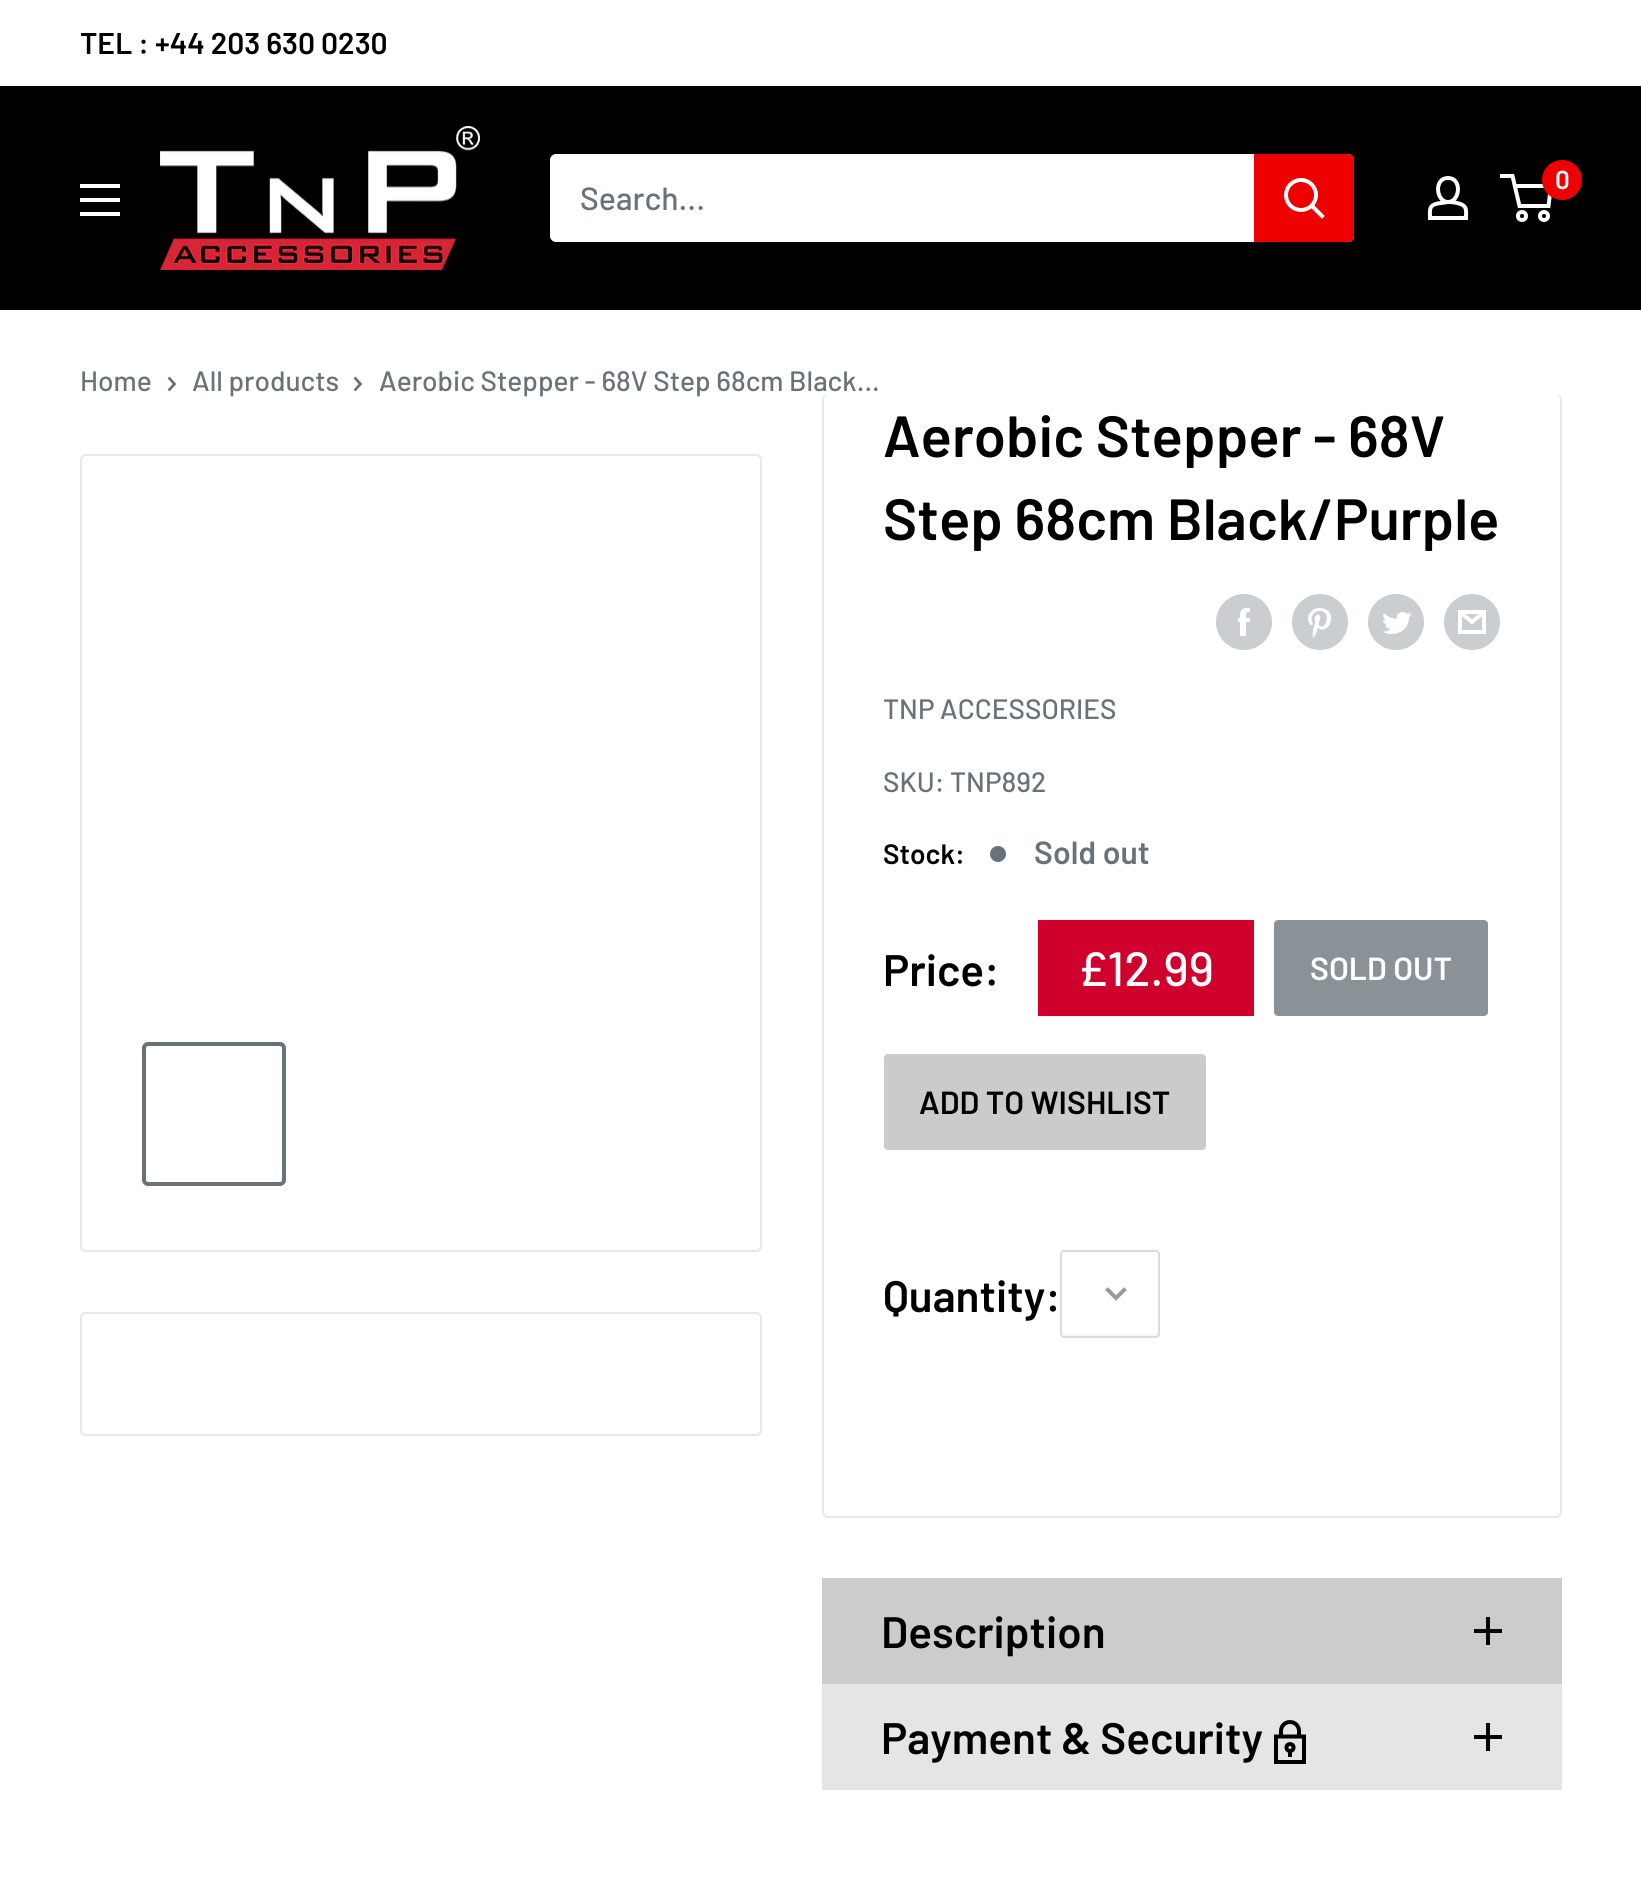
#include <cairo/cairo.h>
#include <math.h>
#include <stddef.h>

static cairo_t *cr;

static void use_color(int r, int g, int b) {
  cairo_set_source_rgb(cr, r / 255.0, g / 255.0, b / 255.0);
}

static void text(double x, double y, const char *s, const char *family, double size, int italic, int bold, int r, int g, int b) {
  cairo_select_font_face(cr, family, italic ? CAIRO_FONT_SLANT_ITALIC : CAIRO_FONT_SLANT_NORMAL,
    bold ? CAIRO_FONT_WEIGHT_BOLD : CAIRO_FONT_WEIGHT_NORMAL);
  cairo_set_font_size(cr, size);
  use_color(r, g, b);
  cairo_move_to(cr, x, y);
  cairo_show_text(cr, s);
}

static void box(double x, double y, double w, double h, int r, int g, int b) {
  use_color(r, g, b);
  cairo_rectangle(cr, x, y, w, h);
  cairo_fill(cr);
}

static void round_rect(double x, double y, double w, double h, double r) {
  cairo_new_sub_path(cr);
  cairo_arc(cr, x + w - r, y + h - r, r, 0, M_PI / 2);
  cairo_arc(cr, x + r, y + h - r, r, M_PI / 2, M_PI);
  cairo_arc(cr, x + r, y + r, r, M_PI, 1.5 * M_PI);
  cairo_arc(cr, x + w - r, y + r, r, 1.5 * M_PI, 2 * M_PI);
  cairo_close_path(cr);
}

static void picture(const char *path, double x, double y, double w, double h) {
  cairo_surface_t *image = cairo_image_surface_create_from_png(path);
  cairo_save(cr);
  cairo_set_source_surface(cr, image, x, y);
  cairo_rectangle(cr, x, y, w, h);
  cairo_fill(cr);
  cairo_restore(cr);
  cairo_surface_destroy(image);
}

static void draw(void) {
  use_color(255, 255, 255);
  cairo_paint(cr);
  box(0, 86, 1641, 224, 0, 0, 0);
  picture("img_01.png", 160, 126, 320, 144);
  cairo_new_path(cr);
  cairo_move_to(cr, 1448, 202);
  cairo_curve_to(cr, 1452, 202, 1455.5, 202.5, 1459, 203.5);
  cairo_curve_to(cr, 1467.5, 206, 1466, 210.5, 1466, 218);
  cairo_line_to(cr, 1430, 218);
  cairo_curve_to(cr, 1430, 210, 1428.5, 205.5, 1437.5, 203.5);
  cairo_close_path(cr);
  cairo_move_to(cr, 1448, 202);
  cairo_curve_to(cr, 1436, 202, 1433.5, 178, 1448, 178);
  cairo_curve_to(cr, 1462.5, 178, 1460, 202, 1448, 202);
  cairo_close_path(cr);
  use_color(255, 255, 255);
  cairo_set_line_width(cr, 4);
  cairo_stroke(cr);
  cairo_arc(cr, 1522, 216, 4, 0, 2 * M_PI);
  cairo_stroke(cr);
  cairo_arc(cr, 1544, 216, 4, 0, 2 * M_PI);
  cairo_stroke(cr);
  cairo_new_path(cr);
  cairo_move_to(cr, 1514.5, 186);
  cairo_line_to(cr, 1551, 186);
  cairo_line_to(cr, 1548.5, 206);
  cairo_line_to(cr, 1519.5, 206);
  cairo_line_to(cr, 1512.5, 176);
  cairo_line_to(cr, 1500, 176);
  cairo_stroke(cr);
  use_color(238, 0, 0);
  cairo_arc(cr, 1562, 180, 20, 0, 2 * M_PI);
  cairo_fill(cr);
  use_color(255, 255, 255);
  cairo_set_fill_rule(cr, CAIRO_FILL_RULE_EVEN_ODD);
  cairo_new_path(cr);
  cairo_move_to(cr, 80, 212);
  cairo_line_to(cr, 120, 212);
  cairo_line_to(cr, 120, 216);
  cairo_line_to(cr, 80, 216);
  cairo_close_path(cr);
  cairo_move_to(cr, 80, 184);
  cairo_line_to(cr, 120, 184);
  cairo_line_to(cr, 120, 188);
  cairo_line_to(cr, 80, 188);
  cairo_close_path(cr);
  cairo_move_to(cr, 80, 198);
  cairo_line_to(cr, 120, 198);
  cairo_line_to(cr, 120, 202);
  cairo_line_to(cr, 80, 202);
  cairo_close_path(cr);
  cairo_fill(cr);
  round_rect(550, 154, 804, 88, 6);
  cairo_fill(cr);
  use_color(238, 0, 0);
  cairo_new_path(cr);
  cairo_move_to(cr, 1254, 154);
  cairo_line_to(cr, 1348, 154);
  cairo_curve_to(cr, 1351.5, 154, 1354, 156.5, 1354, 160);
  cairo_line_to(cr, 1354, 236);
  cairo_curve_to(cr, 1354, 239.5, 1351.5, 242, 1348, 242);
  cairo_line_to(cr, 1254, 242);
  cairo_close_path(cr);
  cairo_fill(cr);
  cairo_new_path(cr);
  cairo_move_to(cr, 1322, 216);
  cairo_line_to(cr, 1312, 206);
  use_color(255, 255, 255);
  cairo_set_line_cap(cr, CAIRO_LINE_CAP_SQUARE);
  cairo_stroke(cr);
  cairo_arc(cr, 1301, 195, 15, 0, 2 * M_PI);
  cairo_set_line_cap(cr, CAIRO_LINE_CAP_BUTT);
  cairo_stroke(cr);
  cairo_new_path(cr);
  cairo_move_to(cr, 169.5, 378.5);
  cairo_line_to(cr, 174.5, 384);
  cairo_line_to(cr, 169.5, 389.5);
  use_color(103, 114, 121);
  cairo_set_line_width(cr, 2.7);
  cairo_set_line_cap(cr, CAIRO_LINE_CAP_SQUARE);
  cairo_stroke(cr);
  cairo_new_path(cr);
  cairo_move_to(cr, 355.5, 378.5);
  cairo_line_to(cr, 360.5, 384);
  cairo_line_to(cr, 355.5, 389.5);
  cairo_stroke(cr);
  round_rect(81, 455, 680, 796, 5);
  use_color(232, 232, 232);
  cairo_set_line_width(cr, 2);
  cairo_set_line_cap(cr, CAIRO_LINE_CAP_BUTT);
  cairo_stroke(cr);
  round_rect(144, 1044, 140, 140, 4);
  use_color(103, 114, 121);
  cairo_set_line_width(cr, 4);
  cairo_stroke(cr);
  round_rect(81, 1313, 680, 122, 5);
  use_color(232, 232, 232);
  cairo_set_line_width(cr, 2);
  cairo_stroke(cr);
  box(822, 1578, 740, 106, 204, 204, 204);
  box(1486, 1617, 4, 28, 0, 0, 0);
  box(1474, 1629, 28, 4, 0, 0, 0);
  box(822, 1684, 740, 106, 229, 229, 229);
  cairo_new_path(cr);
  cairo_move_to(cr, 1290, 1722);
  cairo_curve_to(cr, 1285, 1722, 1281, 1726, 1281, 1731);
  cairo_line_to(cr, 1281, 1736.5);
  cairo_line_to(cr, 1299, 1736.5);
  cairo_line_to(cr, 1299, 1731);
  cairo_curve_to(cr, 1299, 1726, 1295, 1722, 1290, 1722);
  cairo_close_path(cr);
  cairo_move_to(cr, 1276, 1736.5);
  cairo_line_to(cr, 1304, 1736.5);
  cairo_line_to(cr, 1304, 1762);
  cairo_line_to(cr, 1276, 1762);
  cairo_close_path(cr);
  use_color(0, 0, 0);
  cairo_set_line_width(cr, 4);
  cairo_set_line_cap(cr, CAIRO_LINE_CAP_SQUARE);
  cairo_stroke(cr);
  cairo_arc(cr, 1290, 1747.5, 3.5, 0, 2 * M_PI);
  cairo_set_line_cap(cr, CAIRO_LINE_CAP_BUTT);
  cairo_stroke(cr);
  cairo_new_path(cr);
  cairo_move_to(cr, 1290, 1751);
  cairo_line_to(cr, 1290, 1755);
  cairo_set_line_cap(cr, CAIRO_LINE_CAP_SQUARE);
  cairo_stroke(cr);
  box(1486, 1723, 4, 28, 0, 0, 0);
  box(1474, 1735, 28, 4, 0, 0, 0);
  text(80, 54, "TEL : +44 203 630 0230", "Barlow SemiBold", 30, 0, 0, 0, 0, 0);
  text(1555, 189, "0", "Barlow SemiBold", 26, 0, 0, 255, 255, 255);
  text(580, 210, "Search...", "Barlow Medium", 32, 0, 0, 103, 114, 121);
  text(80, 391, "Home", "Barlow Medium", 28, 0, 0, 103, 114, 121);
  text(192, 391, "All products", "Barlow Medium", 28, 0, 0, 103, 114, 121);
  text(379, 391, "Aerobic Stepper - 68V Step 68cm Black...", "Barlow Medium", 28, 0, 0, 103, 114, 121);
  use_color(232, 232, 232);
  cairo_new_path(cr);
  cairo_move_to(cr, 828, 394);
  cairo_line_to(cr, 1556, 394);
  cairo_curve_to(cr, 1559, 394, 1562, 397, 1562, 400);
  cairo_line_to(cr, 1562, 1512);
  cairo_curve_to(cr, 1562, 1515, 1559, 1518, 1556, 1518);
  cairo_line_to(cr, 828, 1518);
  cairo_curve_to(cr, 825, 1518, 822, 1515, 822, 1512);
  cairo_line_to(cr, 822, 400);
  cairo_curve_to(cr, 822, 397, 825, 394, 828, 394);
  cairo_close_path(cr);
  cairo_move_to(cr, 828, 394);
  cairo_line_to(cr, 1556, 394);
  cairo_curve_to(cr, 1558, 394, 1560, 397, 1560, 400);
  cairo_line_to(cr, 1560, 1512);
  cairo_curve_to(cr, 1560, 1514, 1558, 1516, 1556, 1516);
  cairo_line_to(cr, 828, 1516);
  cairo_curve_to(cr, 826, 1516, 824, 1514, 824, 1512);
  cairo_line_to(cr, 824, 400);
  cairo_curve_to(cr, 824, 397, 826, 394, 828, 394);
  cairo_close_path(cr);
  cairo_fill(cr);
  text(883, 457, "Aerobic Stepper - 68V", "Barlow SemiBold", 58, 0, 0, 0, 0, 0);
  text(883, 540, "Step 68cm Black/Purple", "Barlow SemiBold", 58, 0, 0, 0, 0, 0);
  picture("img_02.png", 1216, 594, 56, 56);
  picture("img_03.png", 1292, 594, 56, 56);
  picture("img_04.png", 1368, 594, 56, 56);
  picture("img_05.png", 1444, 594, 56, 56);
  text(883, 719, "TNP ACCESSORIES", "Barlow Medium", 28, 0, 0, 103, 114, 121);
  text(883, 792, "SKU: TNP892", "Barlow Medium", 28, 0, 0, 103, 114, 121);
  text(883, 864, "Stock:", "Barlow SemiBold", 28, 0, 0, 0, 0, 0);
  use_color(103, 114, 121);
  cairo_new_path(cr);
  cairo_arc(cr, 998, 854, 8, 0, 2 * M_PI);
  cairo_fill(cr);
  text(1034, 864, "Sold out", "Barlow SemiBold", 32, 0, 0, 103, 114, 121);
  text(883, 986, "Price:", "Barlow SemiBold", 44, 0, 0, 0, 0, 0);
  box(1038, 920, 216, 96, 207, 0, 43);
  text(1078, 986, "£12.99", "Barlow Medium", 48, 0, 0, 255, 255, 255);
  use_color(138, 146, 151);
  round_rect(1275, 921, 212, 94, 3);
  cairo_fill_preserve(cr);
  cairo_set_line_width(cr, 2);
  cairo_set_line_cap(cr, CAIRO_LINE_CAP_BUTT);
  cairo_stroke(cr);
  text(1310, 980, "SOLD OUT", "Barlow SemiBold", 32, 0, 0, 255, 255, 255);
  use_color(203, 203, 203);
  round_rect(884, 1054, 322, 96, 4);
  cairo_fill(cr);
  text(919, 1114, "ADD TO WISHLIST", "Barlow SemiBold", 32, 0, 0, 0, 0, 0);
  text(883, 1312, "Quantity:", "Barlow SemiBold", 44, 0, 0, 0, 0, 0);
  use_color(248, 248, 248);
  cairo_set_fill_rule(cr, CAIRO_FILL_RULE_WINDING);
  cairo_new_path(cr);
  cairo_move_to(cr, 1062, 1332);
  cairo_line_to(cr, 1062, 1334);
  cairo_curve_to(cr, 1062, 1335, 1063, 1336, 1064, 1336);
  cairo_line_to(cr, 1156, 1336);
  cairo_curve_to(cr, 1157, 1336, 1158, 1335, 1158, 1334);
  cairo_line_to(cr, 1158, 1332);
  cairo_curve_to(cr, 1158, 1333, 1157, 1334, 1156, 1334);
  cairo_line_to(cr, 1064, 1334);
  cairo_curve_to(cr, 1063, 1334, 1062, 1333, 1062, 1332);
  cairo_close_path(cr);
  cairo_fill(cr);
  round_rect(1061, 1251, 98, 86, 3);
  use_color(219, 219, 219);
  cairo_stroke(cr);
  cairo_new_path(cr);
  cairo_move_to(cr, 1124, 1290);
  cairo_line_to(cr, 1116, 1298);
  cairo_line_to(cr, 1108, 1290);
  use_color(149, 156, 161);
  cairo_set_line_width(cr, 4);
  cairo_set_line_cap(cr, CAIRO_LINE_CAP_SQUARE);
  cairo_stroke(cr);
  text(881, 1648, "Description", "Barlow SemiBold", 44, 0, 0, 0, 0, 0);
  text(881, 1754, "Payment & Security", "Barlow SemiBold", 44, 0, 0, 0, 0, 0);
}

int main(void) {
  cairo_surface_t *surface = cairo_image_surface_create(CAIRO_FORMAT_RGB24, 1641, 1889);
  cr = cairo_create(surface);
  cairo_font_options_t *options = cairo_font_options_create();
  cairo_font_options_set_hint_metrics(options, CAIRO_HINT_METRICS_OFF);
  cairo_font_options_set_hint_style(options, CAIRO_HINT_STYLE_NONE);
  cairo_set_font_options(cr, options);
  cairo_set_miter_limit(cr, 4);
  draw();
  cairo_surface_write_to_png(surface, "out.png");
  cairo_font_options_destroy(options);
  cairo_destroy(cr);
  cairo_surface_destroy(surface);
  return 0;
}
